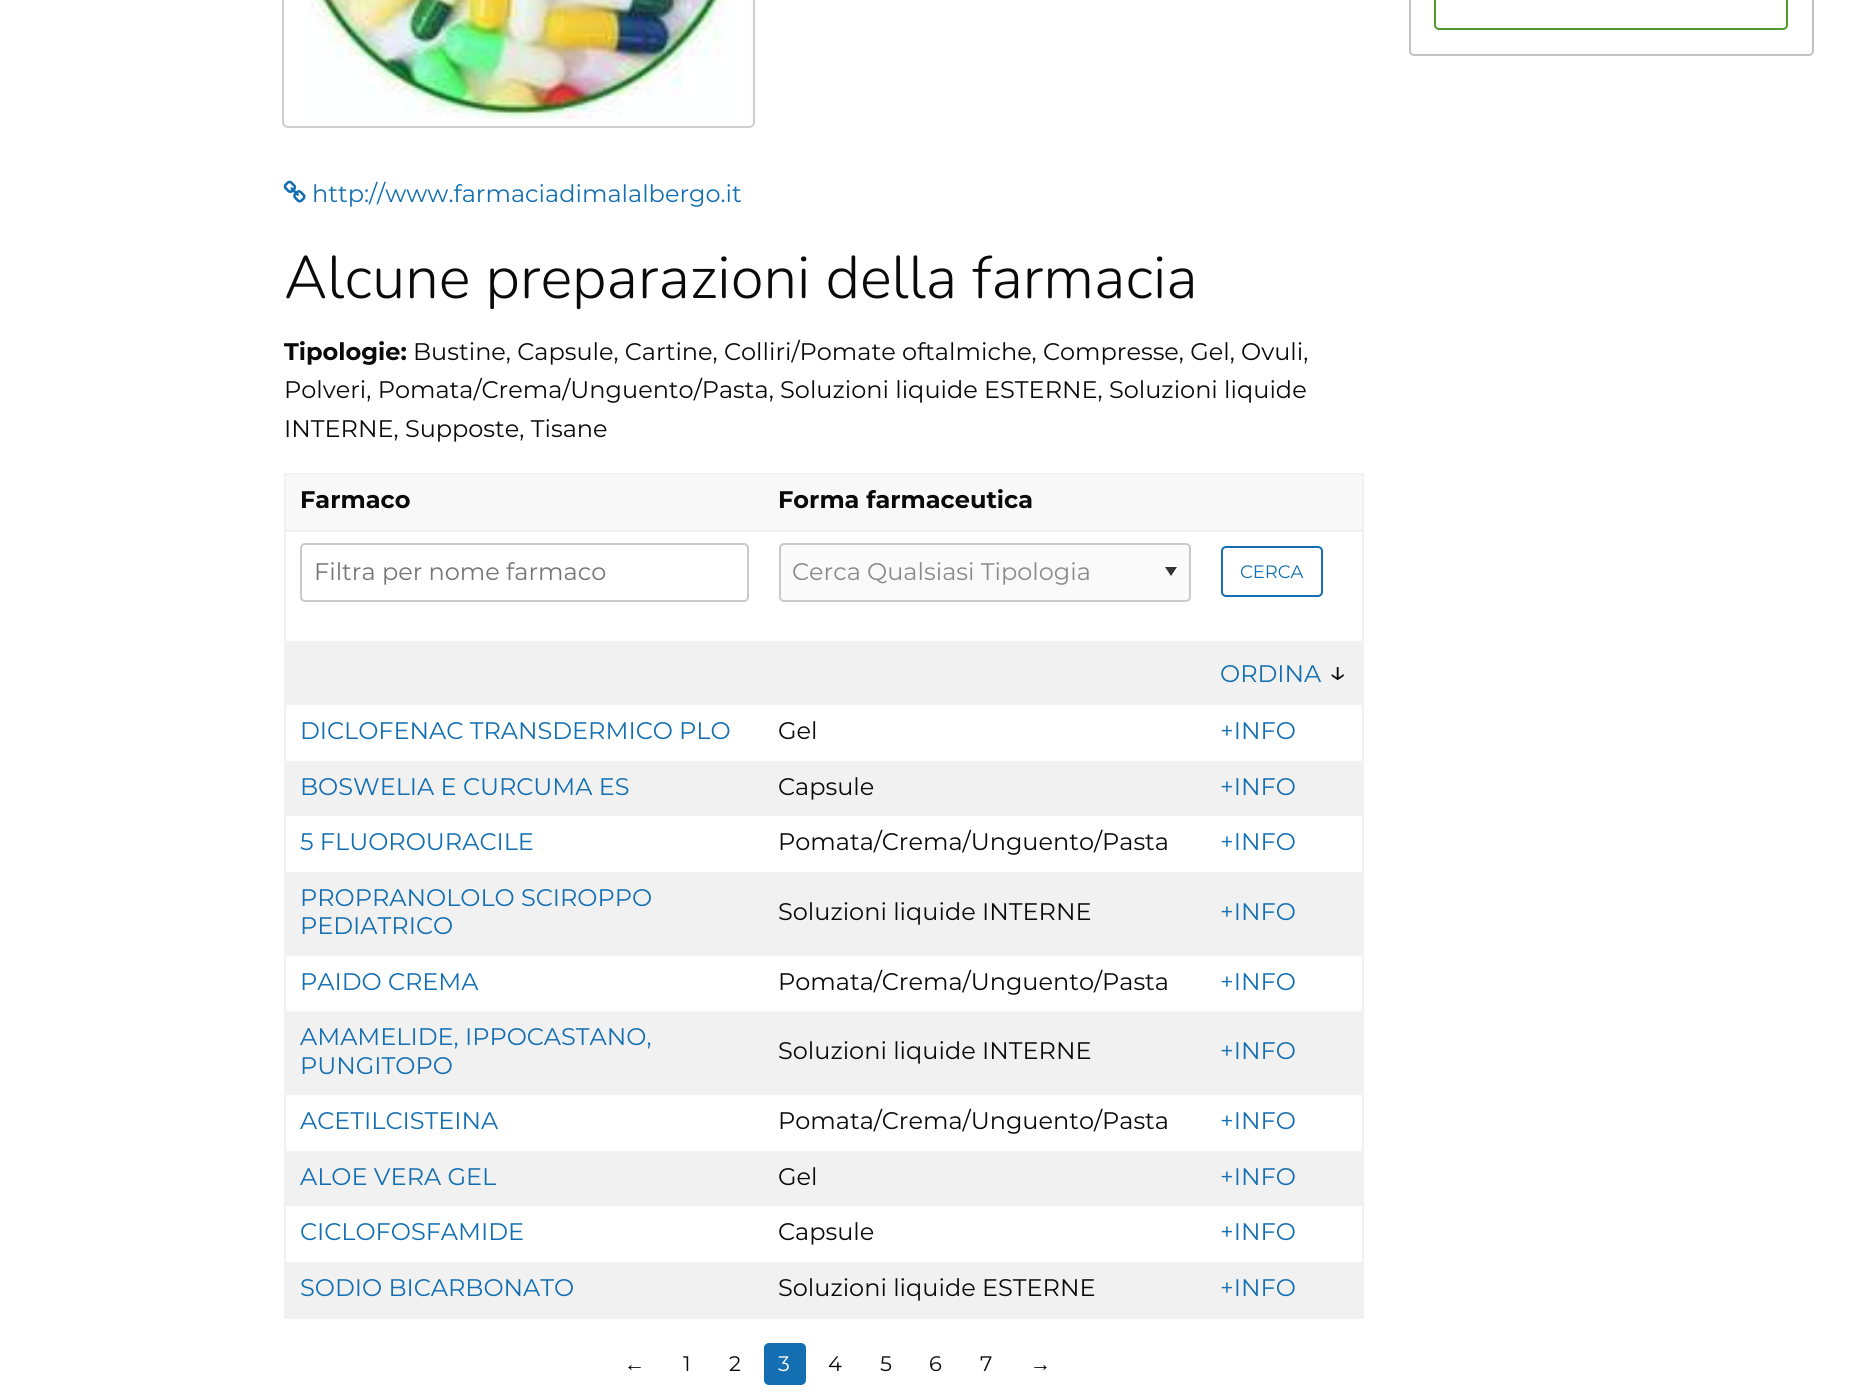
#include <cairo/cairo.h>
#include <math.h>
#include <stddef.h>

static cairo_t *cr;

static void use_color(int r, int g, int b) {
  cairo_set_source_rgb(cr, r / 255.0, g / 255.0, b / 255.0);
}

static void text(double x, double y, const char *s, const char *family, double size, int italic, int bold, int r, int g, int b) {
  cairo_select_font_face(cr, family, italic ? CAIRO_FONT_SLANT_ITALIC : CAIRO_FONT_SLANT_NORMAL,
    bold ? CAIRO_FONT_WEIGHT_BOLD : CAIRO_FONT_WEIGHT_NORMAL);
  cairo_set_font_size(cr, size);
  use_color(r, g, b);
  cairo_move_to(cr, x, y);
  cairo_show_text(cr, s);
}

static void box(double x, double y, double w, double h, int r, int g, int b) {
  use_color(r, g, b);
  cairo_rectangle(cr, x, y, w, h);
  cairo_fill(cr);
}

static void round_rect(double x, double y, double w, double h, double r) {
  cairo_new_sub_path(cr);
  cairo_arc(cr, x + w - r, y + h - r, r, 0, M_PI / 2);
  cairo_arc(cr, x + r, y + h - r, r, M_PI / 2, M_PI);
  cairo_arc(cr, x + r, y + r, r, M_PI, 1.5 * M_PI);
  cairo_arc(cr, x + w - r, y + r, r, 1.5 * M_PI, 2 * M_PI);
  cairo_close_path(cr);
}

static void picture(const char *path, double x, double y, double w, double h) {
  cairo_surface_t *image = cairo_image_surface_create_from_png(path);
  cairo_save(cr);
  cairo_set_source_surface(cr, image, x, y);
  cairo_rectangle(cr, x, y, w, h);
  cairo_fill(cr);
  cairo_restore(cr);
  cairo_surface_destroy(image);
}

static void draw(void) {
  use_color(255, 255, 255);
  cairo_paint(cr);
  round_rect(1410, -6, 403, 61, 4);
  use_color(194, 194, 194);
  cairo_stroke(cr);
  round_rect(1435, -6, 352, 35, 4);
  use_color(81, 152, 46);
  cairo_stroke(cr);
  round_rect(283, -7, 471, 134, 5);
  use_color(206, 206, 206);
  cairo_stroke(cr);
  round_rect(287, -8, 463, 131, 2);
  use_color(254, 254, 254);
  cairo_set_line_width(cr, 6);
  cairo_stroke(cr);
  picture("img_01.png", 309, 0, 427, 119);
  picture("img_02.png", 283, 180, 23, 23);
  box(286, 475, 1076, 55, 248, 248, 248);
  box(284, 473, 1080, 2, 241, 241, 241);
  box(284, 530, 1080, 2, 241, 241, 241);
  box(1362, 530, 2, 789, 241, 241, 241);
  box(1362, 473, 2, 58, 241, 241, 241);
  box(284, 1317, 1080, 2, 241, 241, 241);
  box(284, 530, 2, 789, 241, 241, 241);
  box(284, 473, 2, 58, 241, 241, 241);
  round_rect(301, 544, 447, 57, 4);
  use_color(202, 202, 202);
  cairo_set_line_width(cr, 2);
  cairo_stroke(cr);
  use_color(250, 250, 250);
  round_rect(779, 543, 412, 59, 5);
  cairo_fill(cr);
  use_color(51, 51, 51);
  cairo_new_path(cr);
  cairo_move_to(cr, 1165, 567);
  cairo_line_to(cr, 1177, 567);
  cairo_line_to(cr, 1171, 576);
  cairo_close_path(cr);
  cairo_fill(cr);
  round_rect(780, 544, 410, 57, 4);
  use_color(202, 202, 202);
  cairo_stroke(cr);
  round_rect(1222, 547, 100, 49, 4);
  use_color(19, 111, 178);
  cairo_stroke(cr);
  box(286, 641, 1076, 64, 241, 241, 241);
  box(286, 761, 1076, 55, 241, 241, 241);
  box(286, 872, 1076, 84, 241, 241, 241);
  box(286, 1011, 1076, 84, 241, 241, 241);
  box(286, 1151, 1076, 55, 241, 241, 241);
  box(286, 1262, 1076, 55, 241, 241, 241);
  use_color(19, 111, 178);
  round_rect(764, 1343, 42, 42, 5);
  cairo_fill(cr);
  text(312, 202, "http://www.farmaciadimalalbergo.it", "Montserrat", 24, 0, 0, 19, 111, 178);
  text(284, 298, "Alcune preparazioni della farmacia", "Nunito Light", 60, 0, 0, 10, 10, 10);
  text(284, 360, "Tipologie:", "Montserrat", 24, 0, 1, 10, 10, 10);
  text(413, 360, "Bustine, Capsule, Cartine, Colliri/Pomate oftalmiche, Compresse, Gel, Ovuli,", "Montserrat", 24, 0, 0, 10, 10, 10);
  text(284, 398, "Polveri, Pomata/Crema/Unguento/Pasta, Soluzioni liquide ESTERNE, Soluzioni liquide", "Montserrat", 24, 0, 0, 10, 10, 10);
  text(284, 437, "INTERNE, Supposte, Tisane", "Montserrat", 24, 0, 0, 10, 10, 10);
  text(300, 508, "Farmaco", "Montserrat", 24, 0, 1, 10, 10, 10);
  text(778, 508, "Forma farmaceutica", "Montserrat", 24, 0, 1, 10, 10, 10);
  text(314, 580, "Filtra per nome farmaco", "Montserrat", 24, 0, 0, 117, 117, 117);
  text(792, 580, "Cerca Qualsiasi Tipologia", "Montserrat", 24, 0, 0, 138, 138, 138);
  text(1240, 578, "CERCA", "Montserrat", 18, 0, 0, 19, 111, 178);
  text(1220, 682, "ORDINA", "Montserrat", 24, 0, 0, 19, 111, 178);
  text(1328, 682, "↓", "Montserrat", 31, 0, 0, 10, 10, 10);
  text(300, 739, "DICLOFENAC TRANSDERMICO PLO", "Montserrat", 24, 0, 0, 19, 111, 178);
  text(778, 739, "Gel", "Montserrat", 24, 0, 0, 10, 10, 10);
  text(1220, 739, "+INFO", "Montserrat", 24, 0, 0, 19, 111, 178);
  text(300, 795, "BOSWELIA E CURCUMA ES", "Montserrat", 24, 0, 0, 19, 111, 178);
  text(778, 795, "Capsule", "Montserrat", 24, 0, 0, 10, 10, 10);
  text(1220, 795, "+INFO", "Montserrat", 24, 0, 0, 19, 111, 178);
  text(300, 850, "5 FLUOROURACILE", "Montserrat", 24, 0, 0, 19, 111, 178);
  text(778, 850, "Pomata/Crema/Unguento/Pasta", "Montserrat", 24, 0, 0, 10, 10, 10);
  text(1220, 850, "+INFO", "Montserrat", 24, 0, 0, 19, 111, 178);
  text(300, 906, "PROPRANOLOLO SCIROPPO", "Montserrat", 24, 0, 0, 19, 111, 178);
  text(300, 934, "PEDIATRICO", "Montserrat", 24, 0, 0, 19, 111, 178);
  text(778, 920, "Soluzioni liquide INTERNE", "Montserrat", 24, 0, 0, 10, 10, 10);
  text(1220, 920, "+INFO", "Montserrat", 24, 0, 0, 19, 111, 178);
  text(300, 990, "PAIDO CREMA", "Montserrat", 24, 0, 0, 19, 111, 178);
  text(778, 990, "Pomata/Crema/Unguento/Pasta", "Montserrat", 24, 0, 0, 10, 10, 10);
  text(1220, 990, "+INFO", "Montserrat", 24, 0, 0, 19, 111, 178);
  text(300, 1045, "AMAMELIDE, IPPOCASTANO,", "Montserrat", 24, 0, 0, 19, 111, 178);
  text(300, 1074, "PUNGITOPO", "Montserrat", 24, 0, 0, 19, 111, 178);
  text(778, 1059, "Soluzioni liquide INTERNE", "Montserrat", 24, 0, 0, 10, 10, 10);
  text(1220, 1059, "+INFO", "Montserrat", 24, 0, 0, 19, 111, 178);
  text(300, 1129, "ACETILCISTEINA", "Montserrat", 24, 0, 0, 19, 111, 178);
  text(778, 1129, "Pomata/Crema/Unguento/Pasta", "Montserrat", 24, 0, 0, 10, 10, 10);
  text(1220, 1129, "+INFO", "Montserrat", 24, 0, 0, 19, 111, 178);
  text(300, 1185, "ALOE VERA GEL", "Montserrat", 24, 0, 0, 19, 111, 178);
  text(778, 1185, "Gel", "Montserrat", 24, 0, 0, 10, 10, 10);
  text(1220, 1185, "+INFO", "Montserrat", 24, 0, 0, 19, 111, 178);
  text(300, 1240, "CICLOFOSFAMIDE", "Montserrat", 24, 0, 0, 19, 111, 178);
  text(778, 1240, "Capsule", "Montserrat", 24, 0, 0, 10, 10, 10);
  text(1220, 1240, "+INFO", "Montserrat", 24, 0, 0, 19, 111, 178);
  text(300, 1296, "SODIO BICARBONATO", "Montserrat", 24, 0, 0, 19, 111, 178);
  text(778, 1296, "Soluzioni liquide ESTERNE", "Montserrat", 24, 0, 0, 10, 10, 10);
  text(1220, 1296, "+INFO", "Montserrat", 24, 0, 0, 19, 111, 178);
  text(624, 1371, "←", "Liberation Sans", 21, 0, 0, 10, 10, 10);
  text(683, 1371, "1", "Montserrat", 21, 0, 0, 10, 10, 10);
  text(729, 1371, "2", "Montserrat", 21, 0, 0, 10, 10, 10);
  text(778, 1371, "3", "Montserrat", 21, 0, 0, 254, 254, 254);
  text(828, 1371, "4", "Montserrat", 21, 0, 0, 10, 10, 10);
  text(880, 1371, "5", "Montserrat", 21, 0, 0, 10, 10, 10);
  text(929, 1371, "6", "Montserrat", 21, 0, 0, 10, 10, 10);
  text(980, 1371, "7", "Montserrat", 21, 0, 0, 10, 10, 10);
  text(1030, 1371, "→", "Liberation Sans", 21, 0, 0, 10, 10, 10);
}

int main(void) {
  cairo_surface_t *surface = cairo_image_surface_create(CAIRO_FORMAT_RGB24, 1871, 1393);
  cr = cairo_create(surface);
  cairo_font_options_t *options = cairo_font_options_create();
  cairo_font_options_set_hint_metrics(options, CAIRO_HINT_METRICS_OFF);
  cairo_font_options_set_hint_style(options, CAIRO_HINT_STYLE_NONE);
  cairo_set_font_options(cr, options);
  cairo_set_miter_limit(cr, 4);
  draw();
  cairo_surface_write_to_png(surface, "out.png");
  cairo_font_options_destroy(options);
  cairo_destroy(cr);
  cairo_surface_destroy(surface);
  return 0;
}
